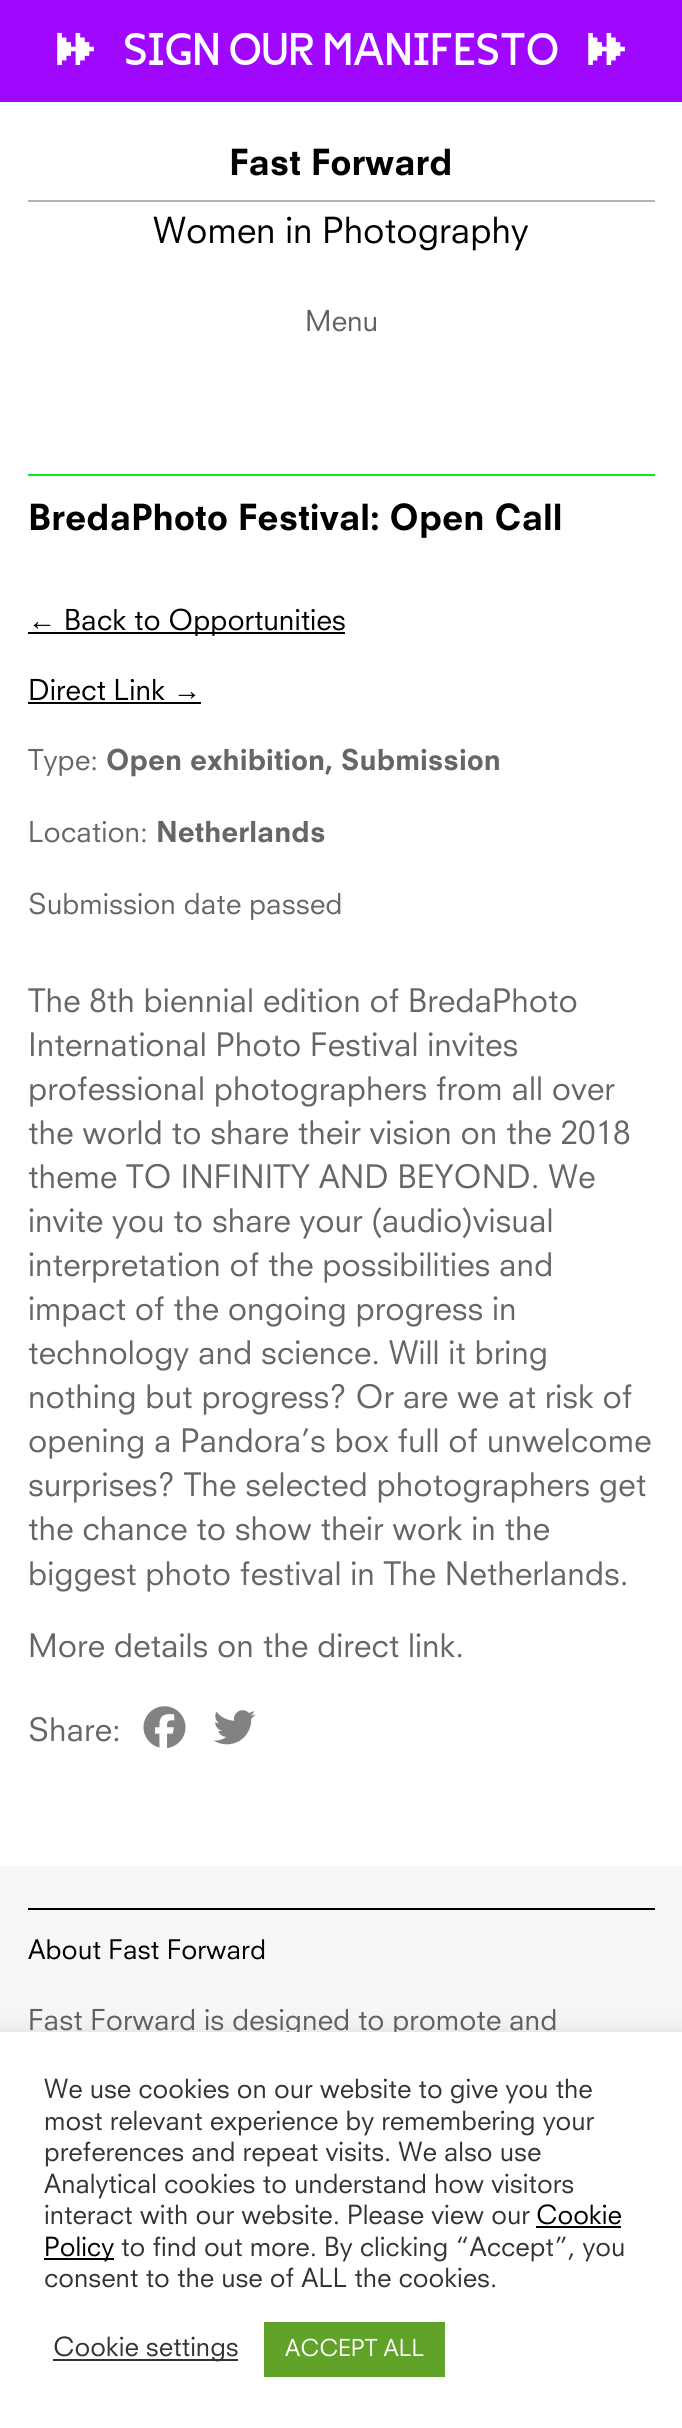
#include <cairo/cairo.h>
#include <math.h>
#include <stddef.h>

static cairo_t *cr;

static void use_color(int r, int g, int b) {
  cairo_set_source_rgb(cr, r / 255.0, g / 255.0, b / 255.0);
}

static void text(double x, double y, const char *s, const char *family, double size, int italic, int bold, int r, int g, int b) {
  cairo_select_font_face(cr, family, italic ? CAIRO_FONT_SLANT_ITALIC : CAIRO_FONT_SLANT_NORMAL,
    bold ? CAIRO_FONT_WEIGHT_BOLD : CAIRO_FONT_WEIGHT_NORMAL);
  cairo_set_font_size(cr, size);
  use_color(r, g, b);
  cairo_move_to(cr, x, y);
  cairo_show_text(cr, s);
}

static void box(double x, double y, double w, double h, int r, int g, int b) {
  use_color(r, g, b);
  cairo_rectangle(cr, x, y, w, h);
  cairo_fill(cr);
}

static void round_rect(double x, double y, double w, double h, double r) {
  cairo_new_sub_path(cr);
  cairo_arc(cr, x + w - r, y + h - r, r, 0, M_PI / 2);
  cairo_arc(cr, x + r, y + h - r, r, M_PI / 2, M_PI);
  cairo_arc(cr, x + r, y + r, r, M_PI, 1.5 * M_PI);
  cairo_arc(cr, x + w - r, y + r, r, 1.5 * M_PI, 2 * M_PI);
  cairo_close_path(cr);
}

static void shadow(double x, double y, double w, double h, double r, double blur, double alpha) {
  cairo_push_group_with_content(cr, CAIRO_CONTENT_ALPHA);
  cairo_set_operator(cr, CAIRO_OPERATOR_SOURCE);
  for (int i = 15; i >= -15 && fmin(w, h) + blur * i / 3 > 0; i -= 2) {
    double e = blur * i / 6;
    cairo_set_source_rgba(cr, 0, 0, 0, alpha * erfc((i - 1) / 8.5) / 2);
    round_rect(x - e, y - e, w + 2 * e, h + 2 * e, fmax(0, fmin(r + e + blur * .6, fmin(w, h) / 2 + e)));
    cairo_fill(cr);
  }
  cairo_pattern_t *soft = cairo_pop_group(cr);
  cairo_mask(cr, soft);
  cairo_pattern_destroy(soft);
}

static void picture(const char *path, double x, double y, double w, double h) {
  cairo_surface_t *image = cairo_image_surface_create_from_png(path);
  cairo_save(cr);
  cairo_set_source_surface(cr, image, x, y);
  cairo_rectangle(cr, x, y, w, h);
  cairo_fill(cr);
  cairo_restore(cr);
  cairo_surface_destroy(image);
}

static void draw(void) {
  use_color(255, 255, 255);
  cairo_paint(cr);
  box(0, 0, 682, 102, 159, 7, 255);
  box(28, 200, 627, 2, 179, 179, 179);
  box(28, 474, 627, 2, 19, 230, 35);
  box(28, 632, 317, 2, 0, 0, 0);
  box(28, 702, 173, 2, 0, 0, 0);
  picture("img_01.png", 143, 1706, 43, 42);
  picture("img_02.png", 213, 1710, 43, 35);
  box(0, 1866, 682, 166, 246, 246, 246);
  box(28, 1908, 627, 2, 0, 0, 0);
  use_color(172, 171, 171);
  shadow(0, 2030, 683, 397, 0, 9, 0.3);
  text(55, 65, "⏩", "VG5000", 45.75, 0, 0, 255, 255, 255);
  text(124, 65, "SIGN OUR MANIFESTO", "VG5000", 45.75, 0, 0, 255, 255, 255);
  text(586, 65, "⏩", "VG5000", 45.75, 0, 0, 255, 255, 255);
  text(229, 175, "Fast Forward", "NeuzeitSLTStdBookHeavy", 35, 0, 0, 0, 0, 0);
  text(153, 243, "Women in Photography", "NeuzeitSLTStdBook", 35, 0, 0, 0, 0, 0);
  text(305, 331, "Menu", "NeuzeitSLTStdBook", 28, 0, 0, 96, 96, 96);
  text(28, 530, "BredaPhoto Festival: Open Call", "NeuzeitSLTStdBookHeavy", 35, 0, 0, 0, 0, 0);
  text(28, 630, "←", "Liberation Sans", 28, 0, 0, 0, 0, 0);
  text(64, 630, "Back to Opportunities", "NeuzeitSLTStdBook", 28, 0, 0, 0, 0, 0);
  text(28, 700, "Direct Link", "NeuzeitSLTStdBook", 28, 0, 0, 0, 0, 0);
  text(173, 700, "→", "Liberation Sans", 28, 0, 0, 0, 0, 0);
  text(28, 770, "Type:", "NeuzeitSLTStdBook", 28, 0, 0, 102, 102, 102);
  text(106, 770, "Open exhibition, Submission", "NeuzeitSLTStdBookHeavy", 28, 0, 0, 102, 102, 102);
  text(28, 842, "Location:", "NeuzeitSLTStdBook", 28, 0, 0, 102, 102, 102);
  text(156, 842, "Netherlands", "NeuzeitSLTStdBookHeavy", 28, 0, 0, 102, 102, 102);
  text(28, 914, "Submission date passed", "NeuzeitSLTStdBook", 28, 0, 0, 102, 102, 102);
  text(28, 1012, "The 8th biennial edition of BredaPhoto", "NeuzeitSLTStdBook", 31.5, 0, 0, 102, 102, 102);
  text(28, 1056, "International Photo Festival invites", "NeuzeitSLTStdBook", 31.5, 0, 0, 102, 102, 102);
  text(28, 1100, "professional photographers from all over", "NeuzeitSLTStdBook", 31.5, 0, 0, 102, 102, 102);
  text(28, 1144, "the world to share their vision on the 2018", "NeuzeitSLTStdBook", 31.5, 0, 0, 102, 102, 102);
  text(28, 1188, "theme TO INFINITY AND BEYOND. We", "NeuzeitSLTStdBook", 31.5, 0, 0, 102, 102, 102);
  text(28, 1232, "invite you to share your (audio)visual", "NeuzeitSLTStdBook", 31.5, 0, 0, 102, 102, 102);
  text(28, 1276, "interpretation of the possibilities and", "NeuzeitSLTStdBook", 31.5, 0, 0, 102, 102, 102);
  text(28, 1320, "impact of the ongoing progress in", "NeuzeitSLTStdBook", 31.5, 0, 0, 102, 102, 102);
  text(28, 1364, "technology and science. Will it bring", "NeuzeitSLTStdBook", 31.5, 0, 0, 102, 102, 102);
  text(28, 1408, "nothing but progress? Or are we at risk of", "NeuzeitSLTStdBook", 31.5, 0, 0, 102, 102, 102);
  text(28, 1452, "opening a Pandora’s box full of unwelcome", "NeuzeitSLTStdBook", 31.5, 0, 0, 102, 102, 102);
  text(28, 1496, "surprises? The selected photographers get", "NeuzeitSLTStdBook", 31.5, 0, 0, 102, 102, 102);
  text(28, 1540, "the chance to show their work in the", "NeuzeitSLTStdBook", 31.5, 0, 0, 102, 102, 102);
  text(28, 1585, "biggest photo festival in The Netherlands.", "NeuzeitSLTStdBook", 31.5, 0, 0, 102, 102, 102);
  text(28, 1657, "More details on the direct link.", "NeuzeitSLTStdBook", 31.5, 0, 0, 102, 102, 102);
  text(28, 1741, "Share:", "NeuzeitSLTStdBook", 31.5, 0, 0, 102, 102, 102);
  text(28, 1959, "About Fast Forward", "NeuzeitSLTStdBook", 26.25, 0, 0, 0, 0, 0);
  text(28, 2030, "Fast Forward is designed to promote and", "NeuzeitSLTStdBook", 28, 0, 0, 96, 96, 96);
  box(0, 2032, 682, 396, 255, 255, 255);
  text(44, 2098, "We use cookies on our website to give you the", "NeuzeitSLTStdBook", 25.7, 0, 0, 51, 51, 51);
  text(44, 2130, "most relevant experience by remembering your", "NeuzeitSLTStdBook", 25.7, 0, 0, 51, 51, 51);
  text(44, 2161, "preferences and repeat visits. We also use", "NeuzeitSLTStdBook", 25.7, 0, 0, 51, 51, 51);
  text(44, 2193, "Analytical cookies to understand how visitors", "NeuzeitSLTStdBook", 25.7, 0, 0, 51, 51, 51);
  text(44, 2224, "interact with our website. Please view our", "NeuzeitSLTStdBook", 25.7, 0, 0, 51, 51, 51);
  text(536, 2224, "Cookie", "NeuzeitSLTStdBook", 25.7, 0, 0, 0, 0, 0);
  box(536, 2226, 85, 2, 0, 0, 0);
  box(44, 2258, 70, 2, 0, 0, 0);
  text(44, 2256, "Policy", "NeuzeitSLTStdBook", 25.7, 0, 0, 0, 0, 0);
  text(121, 2256, "to find out more. By clicking “Accept”, you", "NeuzeitSLTStdBook", 25.7, 0, 0, 51, 51, 51);
  text(44, 2287, "consent to the use of ALL the cookies.", "NeuzeitSLTStdBook", 25.7, 0, 0, 51, 51, 51);
  box(53, 2359, 185, 2, 51, 51, 51);
  text(53, 2356, "Cookie settings", "NeuzeitSLTStdBook", 25.7, 0, 0, 51, 51, 51);
  box(264, 2322, 181, 55, 97, 162, 41);
  text(285, 2356, "ACCEPT ALL", "NeuzeitSLTStdBook", 22.75, 0, 0, 255, 255, 255);
}

int main(void) {
  cairo_surface_t *surface = cairo_image_surface_create(CAIRO_FORMAT_RGB24, 682, 2428);
  cr = cairo_create(surface);
  cairo_font_options_t *options = cairo_font_options_create();
  cairo_font_options_set_hint_metrics(options, CAIRO_HINT_METRICS_OFF);
  cairo_font_options_set_hint_style(options, CAIRO_HINT_STYLE_NONE);
  cairo_set_font_options(cr, options);
  cairo_set_miter_limit(cr, 4);
  draw();
  cairo_surface_write_to_png(surface, "out.png");
  cairo_font_options_destroy(options);
  cairo_destroy(cr);
  cairo_surface_destroy(surface);
  return 0;
}
